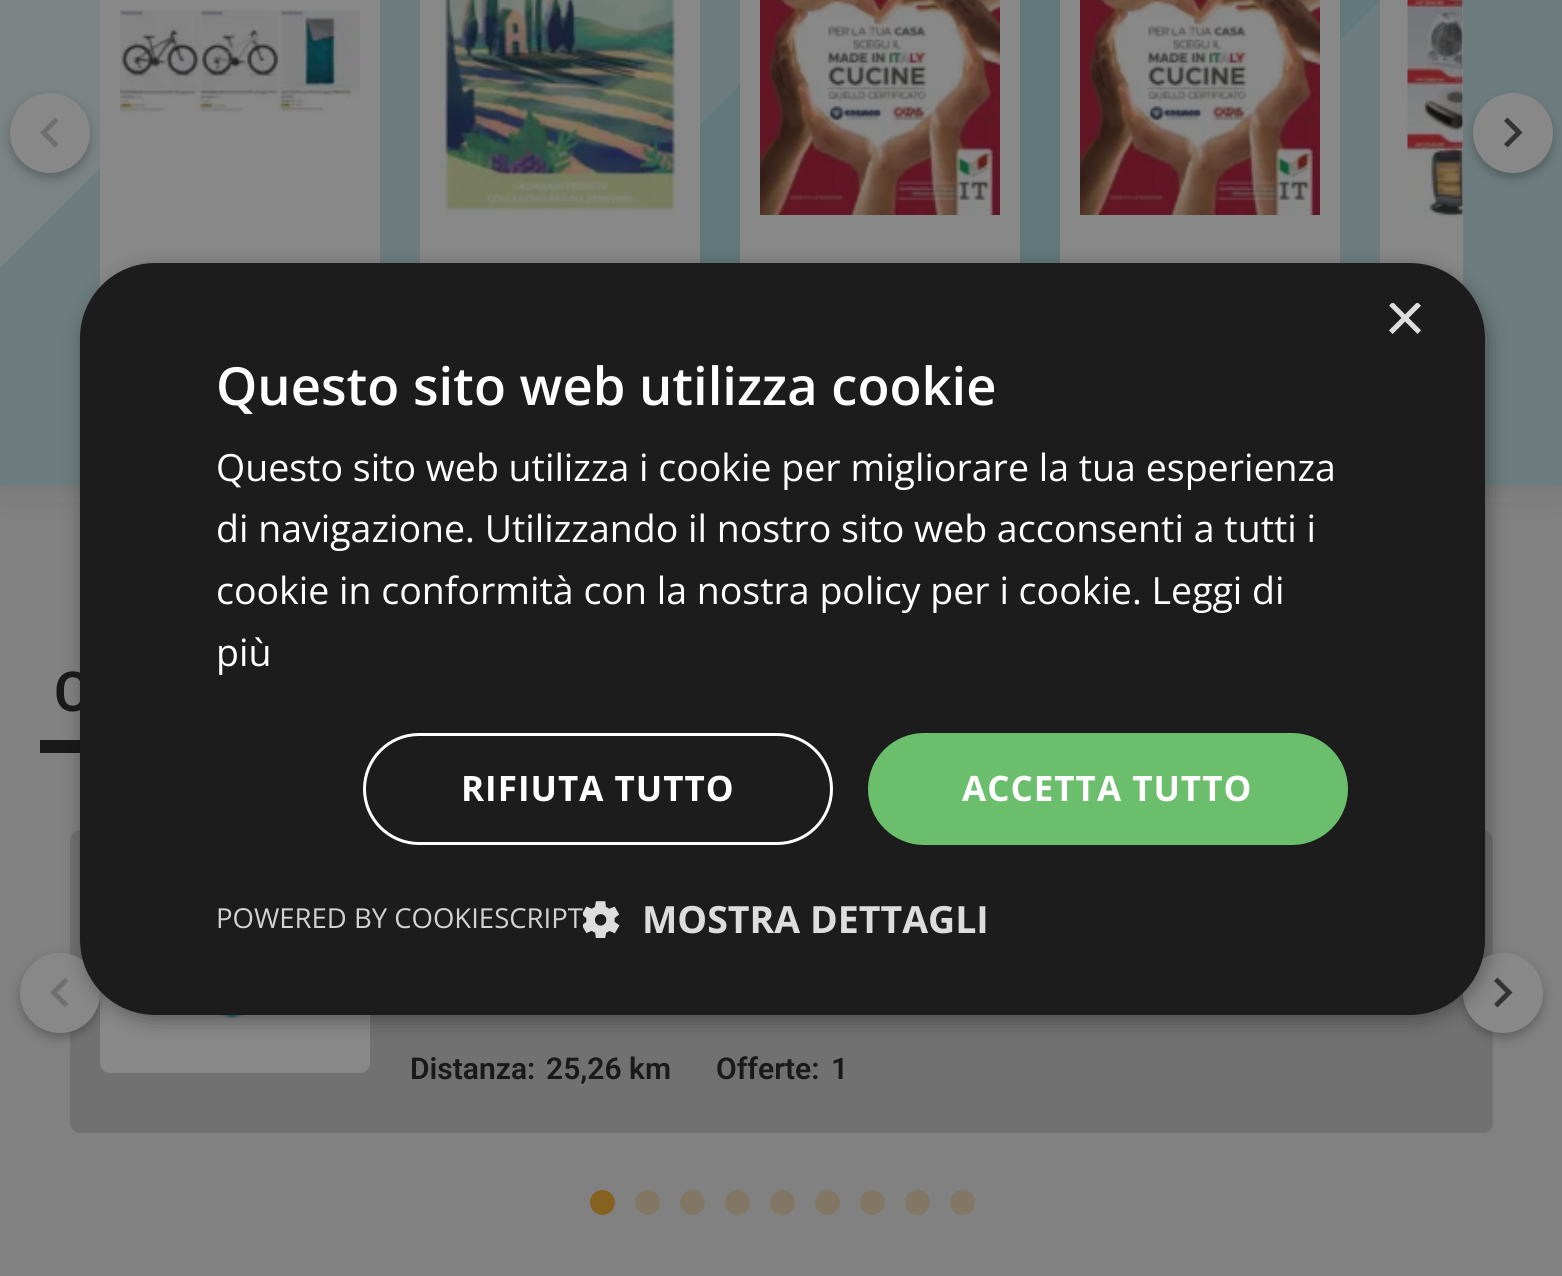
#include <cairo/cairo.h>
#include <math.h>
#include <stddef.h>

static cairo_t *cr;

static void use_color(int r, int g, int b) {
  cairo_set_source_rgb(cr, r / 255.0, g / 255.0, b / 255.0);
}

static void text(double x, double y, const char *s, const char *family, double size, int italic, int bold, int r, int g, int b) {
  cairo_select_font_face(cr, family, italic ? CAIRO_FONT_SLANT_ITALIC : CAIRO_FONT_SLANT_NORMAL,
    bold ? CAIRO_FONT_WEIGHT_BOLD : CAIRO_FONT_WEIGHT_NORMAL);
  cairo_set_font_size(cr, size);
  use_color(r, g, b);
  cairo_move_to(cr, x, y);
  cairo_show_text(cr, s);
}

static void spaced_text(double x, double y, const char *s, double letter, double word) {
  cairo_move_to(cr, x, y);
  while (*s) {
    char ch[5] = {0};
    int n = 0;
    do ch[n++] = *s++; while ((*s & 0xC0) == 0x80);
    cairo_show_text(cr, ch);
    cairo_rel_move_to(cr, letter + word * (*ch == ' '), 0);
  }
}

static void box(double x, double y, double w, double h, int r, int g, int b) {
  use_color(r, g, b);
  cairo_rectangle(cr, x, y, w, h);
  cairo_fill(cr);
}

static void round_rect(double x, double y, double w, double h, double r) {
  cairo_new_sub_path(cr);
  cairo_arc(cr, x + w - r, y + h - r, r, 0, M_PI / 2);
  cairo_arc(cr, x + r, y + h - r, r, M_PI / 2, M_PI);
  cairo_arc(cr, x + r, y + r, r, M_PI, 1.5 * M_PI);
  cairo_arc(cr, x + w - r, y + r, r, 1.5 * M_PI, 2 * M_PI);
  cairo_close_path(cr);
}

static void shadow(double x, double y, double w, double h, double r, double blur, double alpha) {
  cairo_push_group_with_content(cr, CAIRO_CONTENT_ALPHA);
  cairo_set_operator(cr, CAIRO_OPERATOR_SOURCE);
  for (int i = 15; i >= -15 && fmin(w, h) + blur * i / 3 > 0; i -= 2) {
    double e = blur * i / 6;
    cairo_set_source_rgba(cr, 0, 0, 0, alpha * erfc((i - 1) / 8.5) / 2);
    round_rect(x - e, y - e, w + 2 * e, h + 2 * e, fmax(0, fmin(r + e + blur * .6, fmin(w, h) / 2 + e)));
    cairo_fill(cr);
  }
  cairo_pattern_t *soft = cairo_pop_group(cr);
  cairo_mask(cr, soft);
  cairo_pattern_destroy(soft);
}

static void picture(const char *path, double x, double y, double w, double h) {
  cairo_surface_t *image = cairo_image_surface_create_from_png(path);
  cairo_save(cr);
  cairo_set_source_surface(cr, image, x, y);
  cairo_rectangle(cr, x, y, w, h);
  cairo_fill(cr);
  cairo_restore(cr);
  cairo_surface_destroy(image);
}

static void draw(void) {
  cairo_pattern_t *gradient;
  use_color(129, 129, 129);
  cairo_paint(cr);
  use_color(25, 25, 25);
  shadow(0, -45, 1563, 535, 0, 15, 0.1);
  gradient = cairo_pattern_create_linear(225, -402, 1338, 710);
  cairo_pattern_add_color_stop_rgba(gradient, 0, 0.482, 0.514, 0.518, 1);
  cairo_pattern_add_color_stop_rgba(gradient, 0.2, 0.482, 0.514, 0.518, 1);
  cairo_pattern_add_color_stop_rgba(gradient, 0.2, 0.427, 0.49, 0.498, 1);
  cairo_pattern_add_color_stop_rgba(gradient, 0.45, 0.427, 0.49, 0.498, 1);
  cairo_pattern_add_color_stop_rgba(gradient, 0.45, 0.384, 0.475, 0.486, 1);
  cairo_pattern_add_color_stop_rgba(gradient, 0.7, 0.384, 0.475, 0.486, 1);
  cairo_pattern_add_color_stop_rgba(gradient, 0.7, 0.427, 0.49, 0.498, 1);
  cairo_pattern_add_color_stop_rgba(gradient, 1, 0.427, 0.49, 0.498, 1);
  cairo_set_source(cr, gradient);
  cairo_pattern_destroy(gradient);
  cairo_rectangle(cr, 0, 0, 1562, 485);
  cairo_fill(cr);
  box(100, 0, 280, 287, 136, 136, 136);
  use_color(25, 25, 25);
  shadow(10, 98, 80, 80, 40, 5, 0.3);
  use_color(136, 136, 136);
  cairo_arc(cr, 50, 133, 40, 0, 2 * M_PI);
  cairo_fill(cr);
  use_color(111, 111, 111);
  cairo_new_path(cr);
  cairo_move_to(cr, 58.5, 144);
  cairo_line_to(cr, 47, 132.5);
  cairo_line_to(cr, 58.5, 121);
  cairo_line_to(cr, 55, 117.5);
  cairo_line_to(cr, 40, 132.5);
  cairo_line_to(cr, 55, 147.5);
  cairo_close_path(cr);
  cairo_fill(cr);
  picture("img_01.png", 120, 10, 240, 105);
  box(420, 0, 280, 263, 136, 136, 136);
  picture("img_02.png", 440, 0, 240, 215);
  box(740, 0, 280, 263, 136, 136, 136);
  picture("img_03.png", 760, 0, 240, 215);
  box(1060, 0, 280, 263, 136, 136, 136);
  picture("img_04.png", 1080, 0, 240, 215);
  box(1380, 0, 83, 285, 136, 136, 136);
  picture("img_05.png", 1407, 0, 56, 219);
  use_color(25, 25, 25);
  shadow(1473, 98, 80, 80, 40, 5, 0.3);
  use_color(136, 136, 136);
  cairo_arc(cr, 1513, 133, 40, 0, 2 * M_PI);
  cairo_fill(cr);
  use_color(51, 51, 51);
  cairo_new_path(cr);
  cairo_move_to(cr, 1504, 144);
  cairo_line_to(cr, 1515.5, 132.5);
  cairo_line_to(cr, 1504, 121);
  cairo_line_to(cr, 1507.5, 117.5);
  cairo_line_to(cr, 1522.5, 132.5);
  cairo_line_to(cr, 1507.5, 147.5);
  cairo_close_path(cr);
  cairo_fill(cr);
  box(40, 740, 40, 13, 25, 25, 25);
  use_color(113, 113, 113);
  round_rect(70, 830, 1423, 303, 10);
  cairo_fill(cr);
  use_color(136, 136, 136);
  round_rect(100, 893, 270, 180, 10);
  cairo_fill(cr);
  use_color(25, 25, 25);
  shadow(20, 958, 80, 80, 40, 5, 0.3);
  use_color(136, 136, 136);
  cairo_arc(cr, 60, 993, 40, 0, 2 * M_PI);
  cairo_fill(cr);
  use_color(111, 111, 111);
  cairo_new_path(cr);
  cairo_move_to(cr, 68.5, 1004);
  cairo_line_to(cr, 57, 992.5);
  cairo_line_to(cr, 68.5, 981);
  cairo_line_to(cr, 65, 977.5);
  cairo_line_to(cr, 50, 992.5);
  cairo_line_to(cr, 65, 1007.5);
  cairo_close_path(cr);
  cairo_fill(cr);
  use_color(25, 25, 25);
  shadow(1463, 958, 80, 80, 40, 5, 0.3);
  use_color(136, 136, 136);
  cairo_arc(cr, 1503, 993, 40, 0, 2 * M_PI);
  cairo_fill(cr);
  use_color(51, 51, 51);
  cairo_new_path(cr);
  cairo_move_to(cr, 1494, 1004);
  cairo_line_to(cr, 1505.5, 992.5);
  cairo_line_to(cr, 1494, 981);
  cairo_line_to(cr, 1497.5, 977.5);
  cairo_line_to(cr, 1512.5, 992.5);
  cairo_line_to(cr, 1497.5, 1007.5);
  cairo_close_path(cr);
  cairo_fill(cr);
  picture("img_07.png", 219, 1015, 26, 4);
  cairo_save(cr);
  cairo_set_fill_rule(cr, CAIRO_FILL_RULE_EVEN_ODD);
  cairo_new_path(cr);
  cairo_move_to(cr, 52, 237);
  cairo_line_to(cr, 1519, 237);
  cairo_line_to(cr, 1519, 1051);
  cairo_line_to(cr, 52, 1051);
  cairo_close_path(cr);
  cairo_move_to(cr, 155, 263);
  cairo_line_to(cr, 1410, 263);
  cairo_curve_to(cr, 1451.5, 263, 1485, 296.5, 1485, 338);
  cairo_line_to(cr, 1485, 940);
  cairo_curve_to(cr, 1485, 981.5, 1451.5, 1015, 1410, 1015);
  cairo_line_to(cr, 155, 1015);
  cairo_curve_to(cr, 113.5, 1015, 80, 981.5, 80, 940);
  cairo_line_to(cr, 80, 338);
  cairo_curve_to(cr, 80, 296.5, 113.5, 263, 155, 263);
  cairo_close_path(cr);
  cairo_clip(cr);
  use_color(0, 0, 0);
  shadow(83, 268, 1405, 752, 75, 10, 0.35);
  cairo_restore(cr);
  use_color(134, 98, 32);
  cairo_arc(cr, 602.5, 1202.5, 12.5, 0, 2 * M_PI);
  cairo_fill(cr);
  use_color(130, 119, 100);
  cairo_arc(cr, 647.5, 1202.5, 12.5, 0, 2 * M_PI);
  cairo_fill(cr);
  cairo_arc(cr, 692.5, 1202.5, 12.5, 0, 2 * M_PI);
  cairo_fill(cr);
  cairo_arc(cr, 737.5, 1202.5, 12.5, 0, 2 * M_PI);
  cairo_fill(cr);
  cairo_arc(cr, 782.5, 1202.5, 12.5, 0, 2 * M_PI);
  cairo_fill(cr);
  cairo_arc(cr, 827.5, 1202.5, 12.5, 0, 2 * M_PI);
  cairo_fill(cr);
  cairo_arc(cr, 872.5, 1202.5, 12.5, 0, 2 * M_PI);
  cairo_fill(cr);
  cairo_arc(cr, 917.5, 1202.5, 12.5, 0, 2 * M_PI);
  cairo_fill(cr);
  cairo_arc(cr, 962.5, 1202.5, 12.5, 0, 2 * M_PI);
  cairo_fill(cr);
  text(54, 711, "C", "Roboto SemiBold", 55, 0, 0, 25, 25, 25);
  use_color(28, 28, 28);
  round_rect(80, 263, 1405, 752, 75);
  cairo_fill(cr);
  cairo_save(cr);
  cairo_rectangle(cr, 1385, 303, 38, 37);
  cairo_clip(cr);
  text(1384, 342, "×", "Liberation Sans", 72, 0, 0, 221, 221, 221);
  cairo_restore(cr);
  text(216, 405, "Questo sito web utilizza cookie", "Open Sans SemiBold", 52.5, 0, 0, 255, 255, 255);
  text(216, 928, "POWERED BY COOKIESCRIPT", "Open Sans", 27.5, 0, 0, 210, 210, 210);
  picture("img_06.png", 583, 901, 37, 37);
  text(642, 933, "MOSTRA DETTAGLI", "Open Sans", 37.5, 0, 1, 221, 221, 221);
  round_rect(364.5, 734.5, 467, 109, 54.5);
  use_color(255, 255, 255);
  cairo_set_line_width(cr, 3);
  cairo_stroke(cr);
  cairo_set_font_size(cr, 35);
  spaced_text(461, 801, "RIFIUTA TUTTO", 1, 0);
  use_color(107, 190, 107);
  round_rect(868, 733, 480, 112, 56);
  cairo_fill(cr);
  use_color(255, 255, 255);
  spaced_text(962, 801, "ACCETTA TUTTO", 1, 0);
  text(216, 666, "più", "Open Sans", 37.5, 0, 0, 255, 255, 255);
  text(216, 604, "cookie in conformità con la nostra policy per i cookie. Leggi di", "Open Sans", 37.5, 0, 0, 255, 255, 255);
  text(216, 542, "di navigazione. Utilizzando il nostro sito web acconsenti a tutti i", "Open Sans", 37.5, 0, 0, 255, 255, 255);
  text(216, 481, "Questo sito web utilizza i cookie per migliorare la tua esperienza", "Open Sans", 37.5, 0, 0, 255, 255, 255);
  text(410, 1079, "Distanza:", "Roboto SemiBold", 30, 0, 0, 25, 25, 25);
  text(546, 1079, "25,26 km", "Roboto SemiBold", 30, 0, 0, 25, 25, 25);
  text(716, 1079, "Offerte:", "Roboto SemiBold", 30, 0, 0, 25, 25, 25);
  text(831, 1079, "1", "Roboto SemiBold", 30, 0, 0, 25, 25, 25);
}

int main(void) {
  cairo_surface_t *surface = cairo_image_surface_create(CAIRO_FORMAT_RGB24, 1562, 1276);
  cr = cairo_create(surface);
  cairo_font_options_t *options = cairo_font_options_create();
  cairo_font_options_set_hint_metrics(options, CAIRO_HINT_METRICS_OFF);
  cairo_font_options_set_hint_style(options, CAIRO_HINT_STYLE_NONE);
  cairo_set_font_options(cr, options);
  cairo_set_miter_limit(cr, 4);
  draw();
  cairo_surface_write_to_png(surface, "out.png");
  cairo_font_options_destroy(options);
  cairo_destroy(cr);
  cairo_surface_destroy(surface);
  return 0;
}
